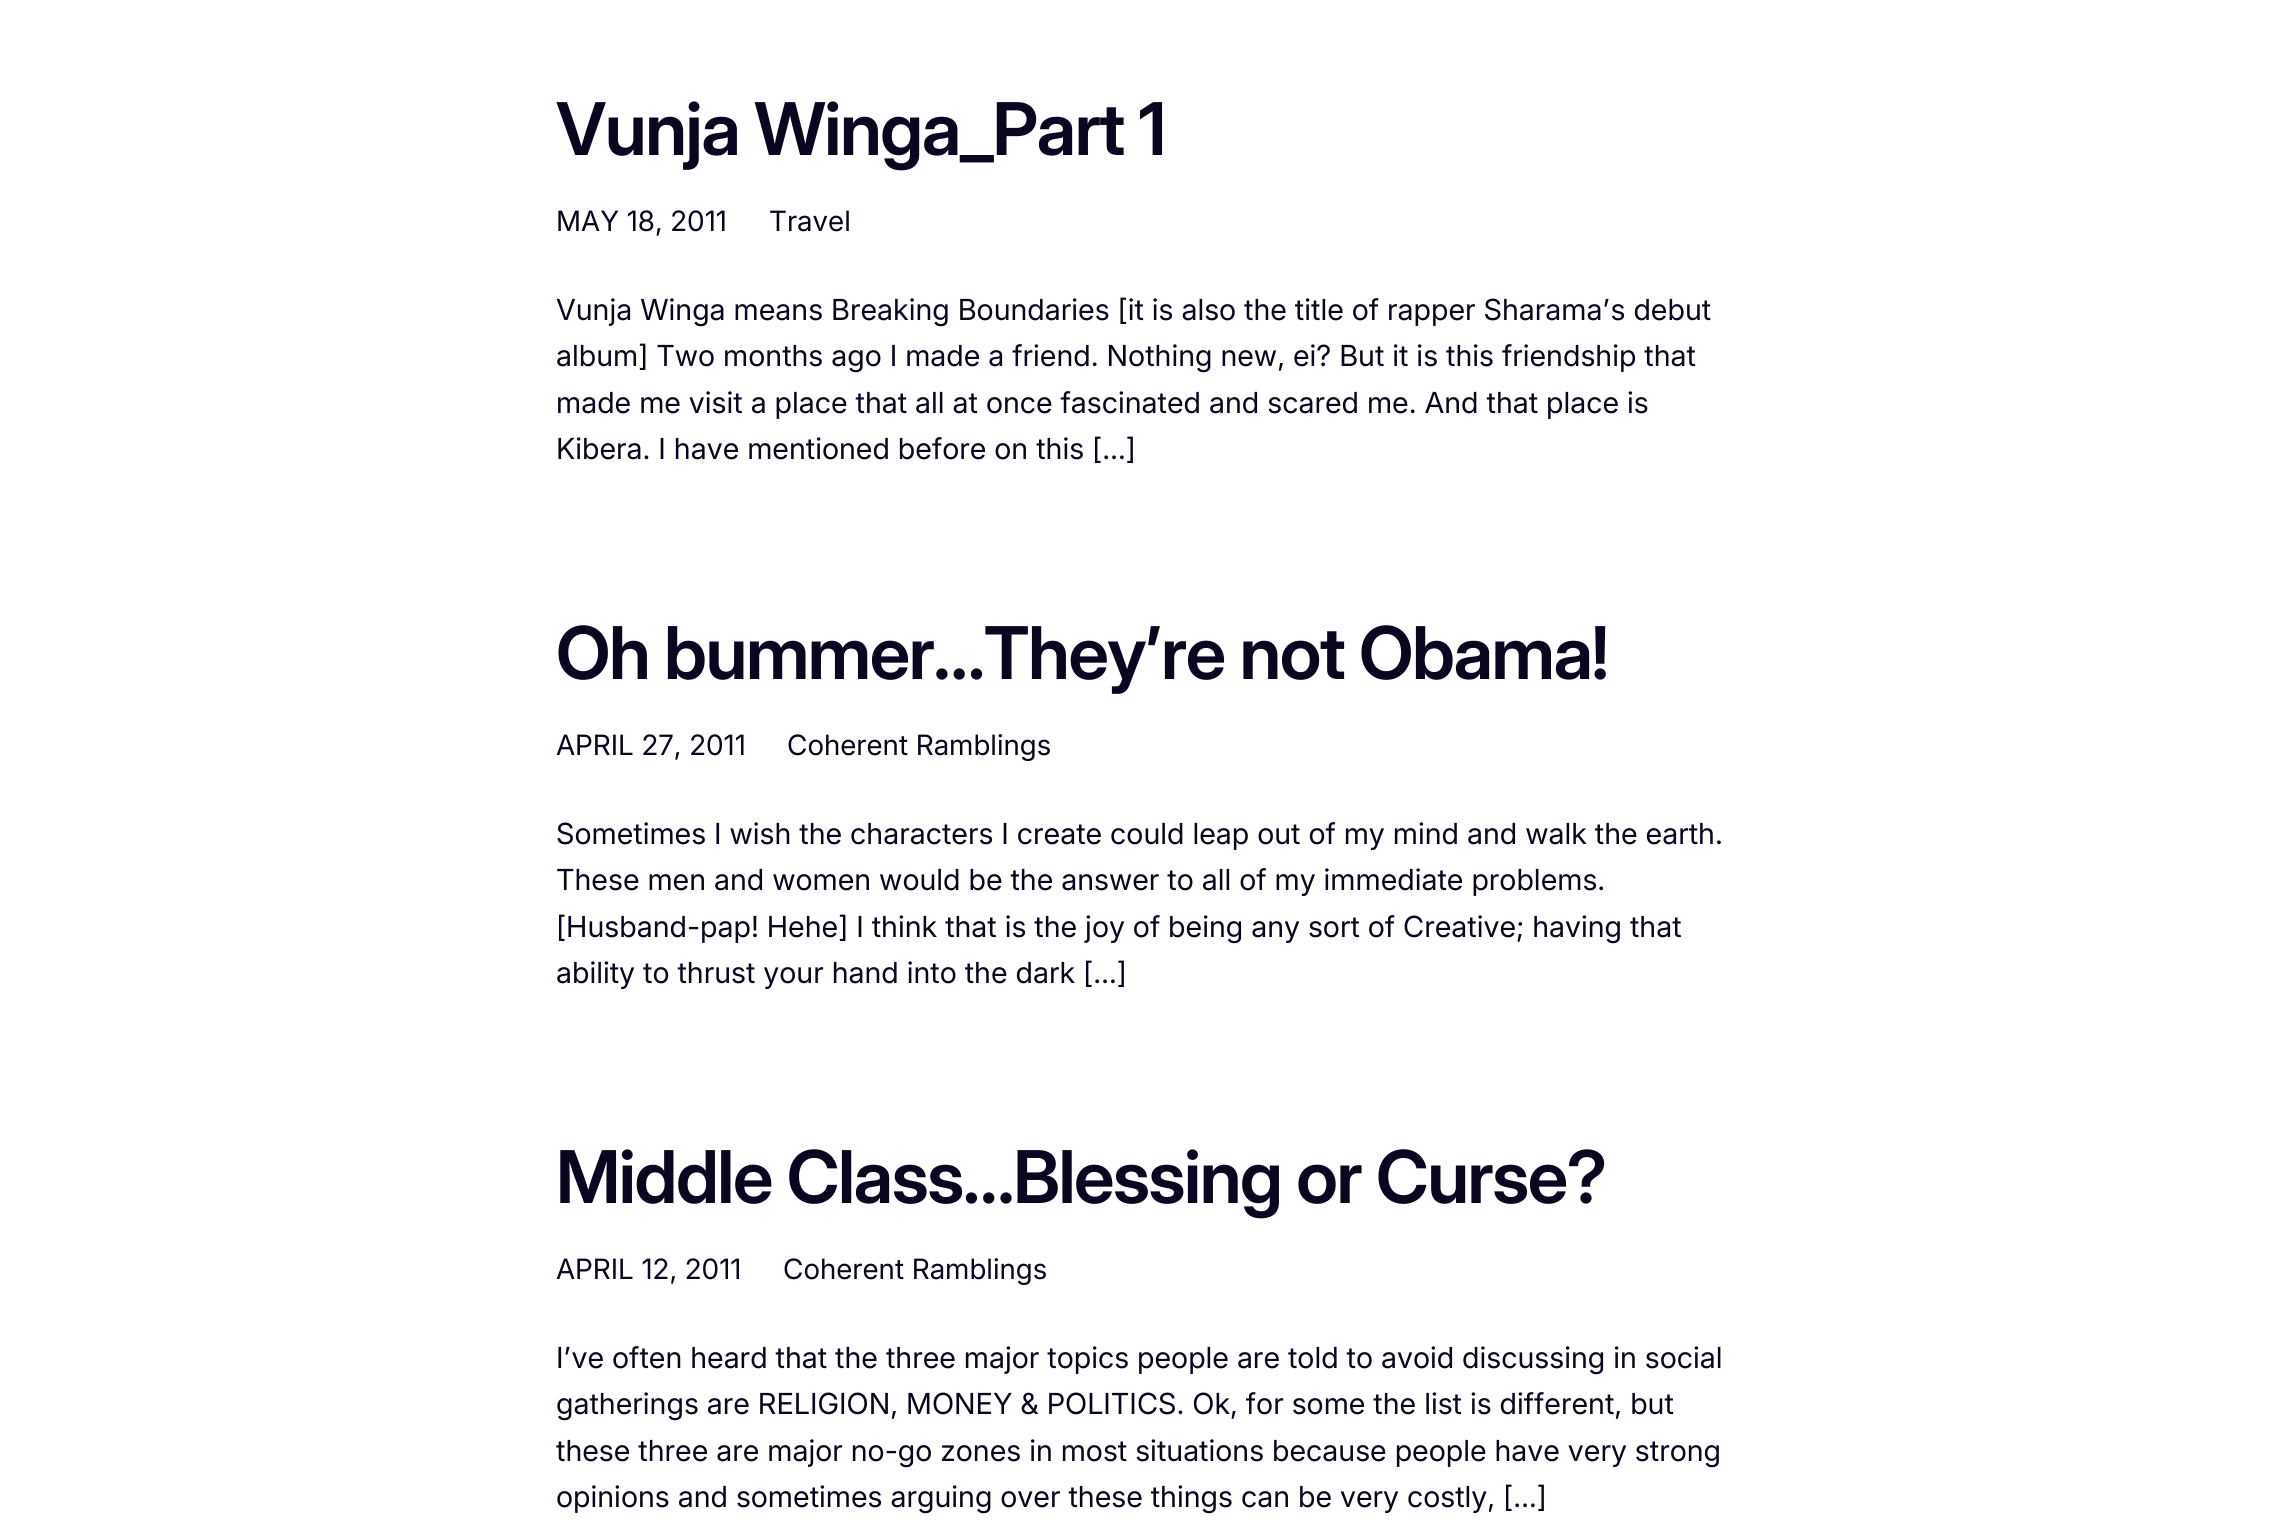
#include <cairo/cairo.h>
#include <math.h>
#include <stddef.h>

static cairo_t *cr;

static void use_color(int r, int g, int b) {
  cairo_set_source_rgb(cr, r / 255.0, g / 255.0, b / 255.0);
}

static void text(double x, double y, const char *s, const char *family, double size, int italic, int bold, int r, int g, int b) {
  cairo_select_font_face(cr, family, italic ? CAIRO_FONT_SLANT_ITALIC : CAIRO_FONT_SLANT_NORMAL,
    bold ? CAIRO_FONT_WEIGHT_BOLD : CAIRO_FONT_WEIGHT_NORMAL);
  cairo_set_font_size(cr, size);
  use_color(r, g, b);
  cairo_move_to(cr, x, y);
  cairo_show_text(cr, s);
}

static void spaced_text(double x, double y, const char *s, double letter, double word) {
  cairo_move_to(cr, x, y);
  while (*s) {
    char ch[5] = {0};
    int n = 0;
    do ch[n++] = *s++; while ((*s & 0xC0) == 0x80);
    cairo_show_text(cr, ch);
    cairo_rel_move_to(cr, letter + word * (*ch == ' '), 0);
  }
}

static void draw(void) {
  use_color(255, 255, 255);
  cairo_paint(cr);
  cairo_select_font_face(cr, "Inter SemiBold", CAIRO_FONT_SLANT_NORMAL, CAIRO_FONT_WEIGHT_NORMAL);
  cairo_set_font_size(cr, 72.7);
  use_color(11, 6, 32);
  spaced_text(556, 155, "Vunja Winga_Part 1", -1.45, 0);
  text(556, 231, "MAY 18, 2011", "Inter", 28, 0, 0, 11, 6, 32);
  text(769, 231, "Travel", "Inter", 28, 0, 0, 11, 6, 32);
  text(556, 320, "Vunja Winga means Breaking Boundaries [it is also the title of rapper Sharama’s debut", "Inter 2", 29.05, 0, 0, 11, 6, 32);
  text(556, 366, "album] Two months ago I made a friend. Nothing new, ei? But it is this friendship that", "Inter 2", 29.05, 0, 0, 11, 6, 32);
  text(556, 413, "made me visit a place that all at once fascinated and scared me. And that place is", "Inter 2", 29.05, 0, 0, 11, 6, 32);
  text(556, 459, "Kibera. I have mentioned before on this […]", "Inter 2", 29.05, 0, 0, 11, 6, 32);
  cairo_select_font_face(cr, "Inter SemiBold", CAIRO_FONT_SLANT_NORMAL, CAIRO_FONT_WEIGHT_NORMAL);
  cairo_set_font_size(cr, 72.7);
  spaced_text(556, 679, "Oh bummer…They’re not Obama!", -1.45, 0);
  text(556, 755, "APRIL 27, 2011", "Inter", 28, 0, 0, 11, 6, 32);
  text(787, 755, "Coherent Ramblings", "Inter", 28, 0, 0, 11, 6, 32);
  text(556, 844, "Sometimes I wish the characters I create could leap out of my mind and walk the earth.", "Inter 2", 29.05, 0, 0, 11, 6, 32);
  text(556, 890, "These men and women would be the answer to all of my immediate problems.", "Inter 2", 29.05, 0, 0, 11, 6, 32);
  text(556, 937, "[Husband-pap! Hehe] I think that is the joy of being any sort of Creative; having that", "Inter 2", 29.05, 0, 0, 11, 6, 32);
  text(556, 983, "ability to thrust your hand into the dark […]", "Inter 2", 29.05, 0, 0, 11, 6, 32);
  cairo_select_font_face(cr, "Inter SemiBold", CAIRO_FONT_SLANT_NORMAL, CAIRO_FONT_WEIGHT_NORMAL);
  cairo_set_font_size(cr, 72.7);
  spaced_text(556, 1203, "Middle Class…Blessing or Curse?", -1.45, 0);
  text(556, 1279, "APRIL 12, 2011", "Inter", 28, 0, 0, 11, 6, 32);
  text(783, 1279, "Coherent Ramblings", "Inter", 28, 0, 0, 11, 6, 32);
  text(556, 1368, "I’ve often heard that the three major topics people are told to avoid discussing in social", "Inter 2", 29.05, 0, 0, 11, 6, 32);
  text(556, 1414, "gatherings are RELIGION, MONEY & POLITICS. Ok, for some the list is different, but", "Inter 2", 29.05, 0, 0, 11, 6, 32);
  text(556, 1461, "these three are major no-go zones in most situations because people have very strong", "Inter 2", 29.05, 0, 0, 11, 6, 32);
  text(556, 1507, "opinions and sometimes arguing over these things can be very costly, […]", "Inter 2", 29.05, 0, 0, 11, 6, 32);
}

int main(void) {
  cairo_surface_t *surface = cairo_image_surface_create(CAIRO_FORMAT_RGB24, 2287, 1532);
  cr = cairo_create(surface);
  cairo_font_options_t *options = cairo_font_options_create();
  cairo_font_options_set_hint_metrics(options, CAIRO_HINT_METRICS_OFF);
  cairo_font_options_set_hint_style(options, CAIRO_HINT_STYLE_NONE);
  cairo_set_font_options(cr, options);
  cairo_set_miter_limit(cr, 4);
  draw();
  cairo_surface_write_to_png(surface, "out.png");
  cairo_font_options_destroy(options);
  cairo_destroy(cr);
  cairo_surface_destroy(surface);
  return 0;
}
